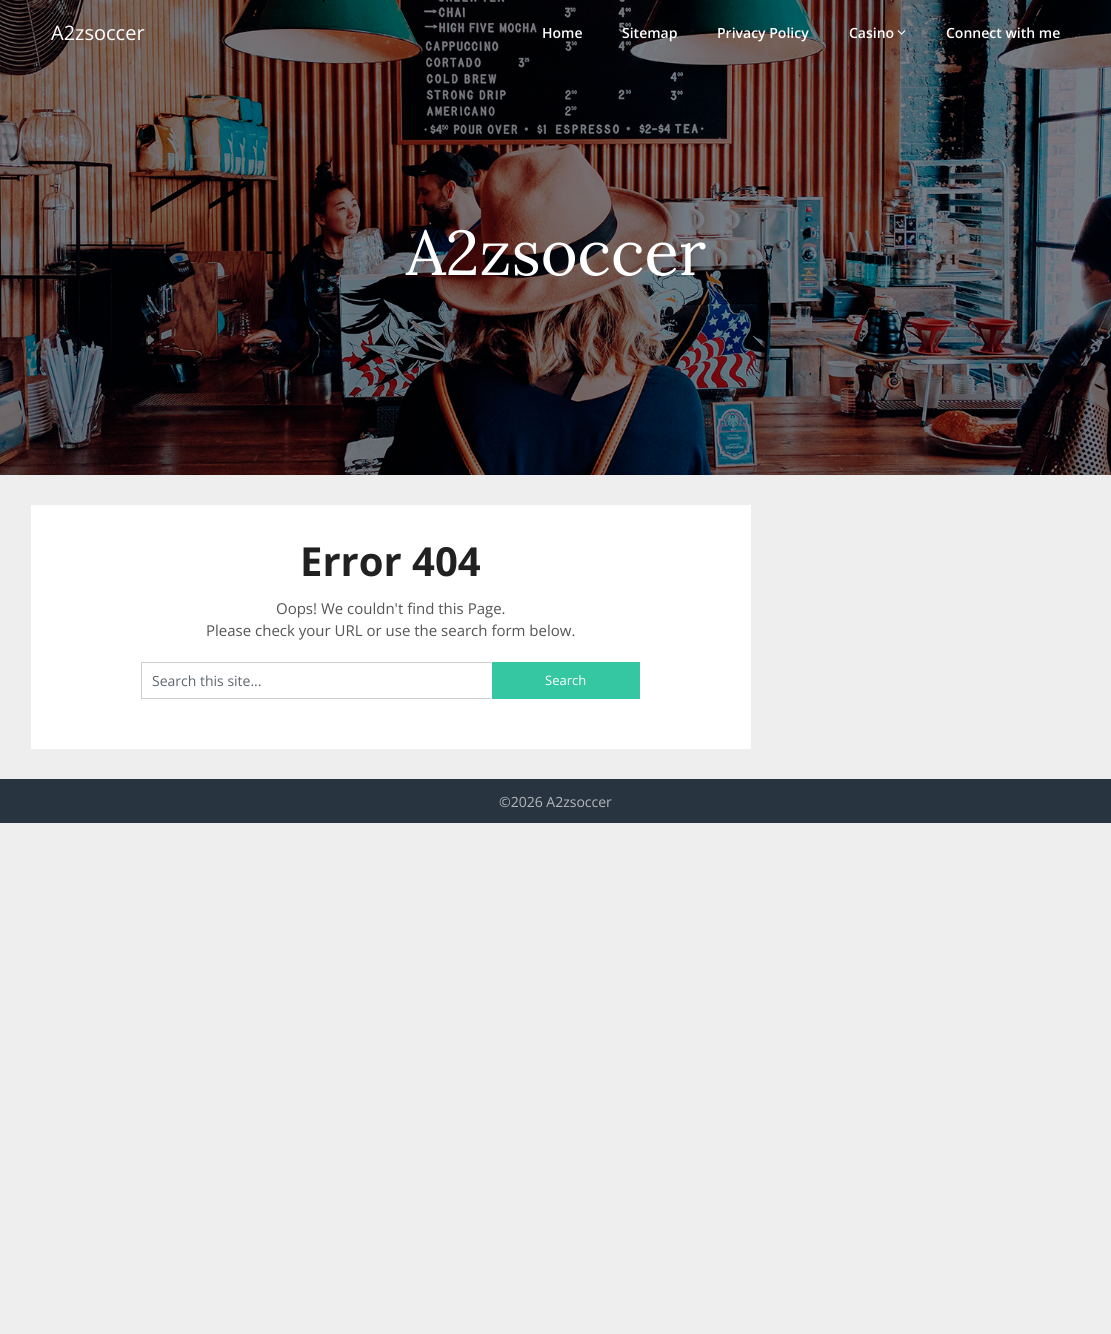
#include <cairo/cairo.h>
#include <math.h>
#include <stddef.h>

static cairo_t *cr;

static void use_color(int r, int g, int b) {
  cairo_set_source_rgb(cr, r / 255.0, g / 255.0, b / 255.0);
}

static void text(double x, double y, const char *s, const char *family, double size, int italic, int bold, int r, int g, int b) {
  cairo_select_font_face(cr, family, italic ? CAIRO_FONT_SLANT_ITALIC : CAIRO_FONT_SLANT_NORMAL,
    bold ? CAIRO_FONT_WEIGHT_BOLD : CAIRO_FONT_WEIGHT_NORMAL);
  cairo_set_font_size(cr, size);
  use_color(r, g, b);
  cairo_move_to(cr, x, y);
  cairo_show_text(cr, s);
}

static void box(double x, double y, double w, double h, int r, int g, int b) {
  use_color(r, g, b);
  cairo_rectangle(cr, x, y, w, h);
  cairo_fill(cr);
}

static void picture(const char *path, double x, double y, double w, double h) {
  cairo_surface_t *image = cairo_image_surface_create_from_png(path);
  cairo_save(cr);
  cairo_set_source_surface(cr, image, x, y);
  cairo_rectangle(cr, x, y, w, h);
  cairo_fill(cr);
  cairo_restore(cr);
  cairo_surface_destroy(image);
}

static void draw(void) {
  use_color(238, 238, 238);
  cairo_paint(cr);
  picture("img_01.png", 0, 0, 1111, 475);
  picture("img_02.png", 897, 30, 9, 5);
  box(31, 505, 720, 244, 255, 255, 255);
  box(141, 662, 350, 1, 204, 204, 204);
  box(141, 698, 350, 1, 204, 204, 204);
  box(141, 662, 1, 37, 204, 204, 204);
  box(492, 662, 148, 37, 53, 198, 162);
  box(0, 779, 1111, 44, 40, 52, 64);
  text(51, 40, "A2zsoccer", "Open Sans", 20, 0, 0, 255, 255, 255);
  text(542, 38, "Home", "Open Sans SemiBold", 14, 0, 0, 255, 255, 255);
  text(622, 38, "Sitemap", "Open Sans SemiBold", 14, 0, 0, 255, 255, 255);
  text(717, 38, "Privacy Policy", "Open Sans SemiBold", 14, 0, 0, 255, 255, 255);
  text(849, 38, "Casino", "Open Sans SemiBold", 14, 0, 0, 255, 255, 255);
  text(946, 38, "Connect with me", "Open Sans SemiBold", 14, 0, 0, 255, 255, 255);
  text(406, 275, "A2zsoccer", "Lora", 63, 0, 0, 255, 255, 255);
  text(300, 576, "Error 404", "Open Sans", 40, 0, 1, 33, 33, 33);
  text(276, 614, "Oops! We couldn't find this Page.", "Open Sans", 15, 0, 0, 85, 85, 85);
  text(206, 636, "Please check your URL or use the search form below.", "Open Sans", 15, 0, 0, 85, 85, 85);
  text(152, 686, "Search this site...", "Open Sans", 14, 0, 0, 94, 101, 109);
  text(545, 685, "Search", "Open Sans", 13, 0, 0, 255, 255, 255);
  text(499, 807, "©2026 A2zsoccer", "Open Sans", 14, 0, 0, 180, 184, 188);
}

int main(void) {
  cairo_surface_t *surface = cairo_image_surface_create(CAIRO_FORMAT_RGB24, 1111, 1334);
  cr = cairo_create(surface);
  cairo_font_options_t *options = cairo_font_options_create();
  cairo_font_options_set_hint_metrics(options, CAIRO_HINT_METRICS_OFF);
  cairo_font_options_set_hint_style(options, CAIRO_HINT_STYLE_NONE);
  cairo_set_font_options(cr, options);
  cairo_set_miter_limit(cr, 4);
  draw();
  cairo_surface_write_to_png(surface, "out.png");
  cairo_font_options_destroy(options);
  cairo_destroy(cr);
  cairo_surface_destroy(surface);
  return 0;
}
